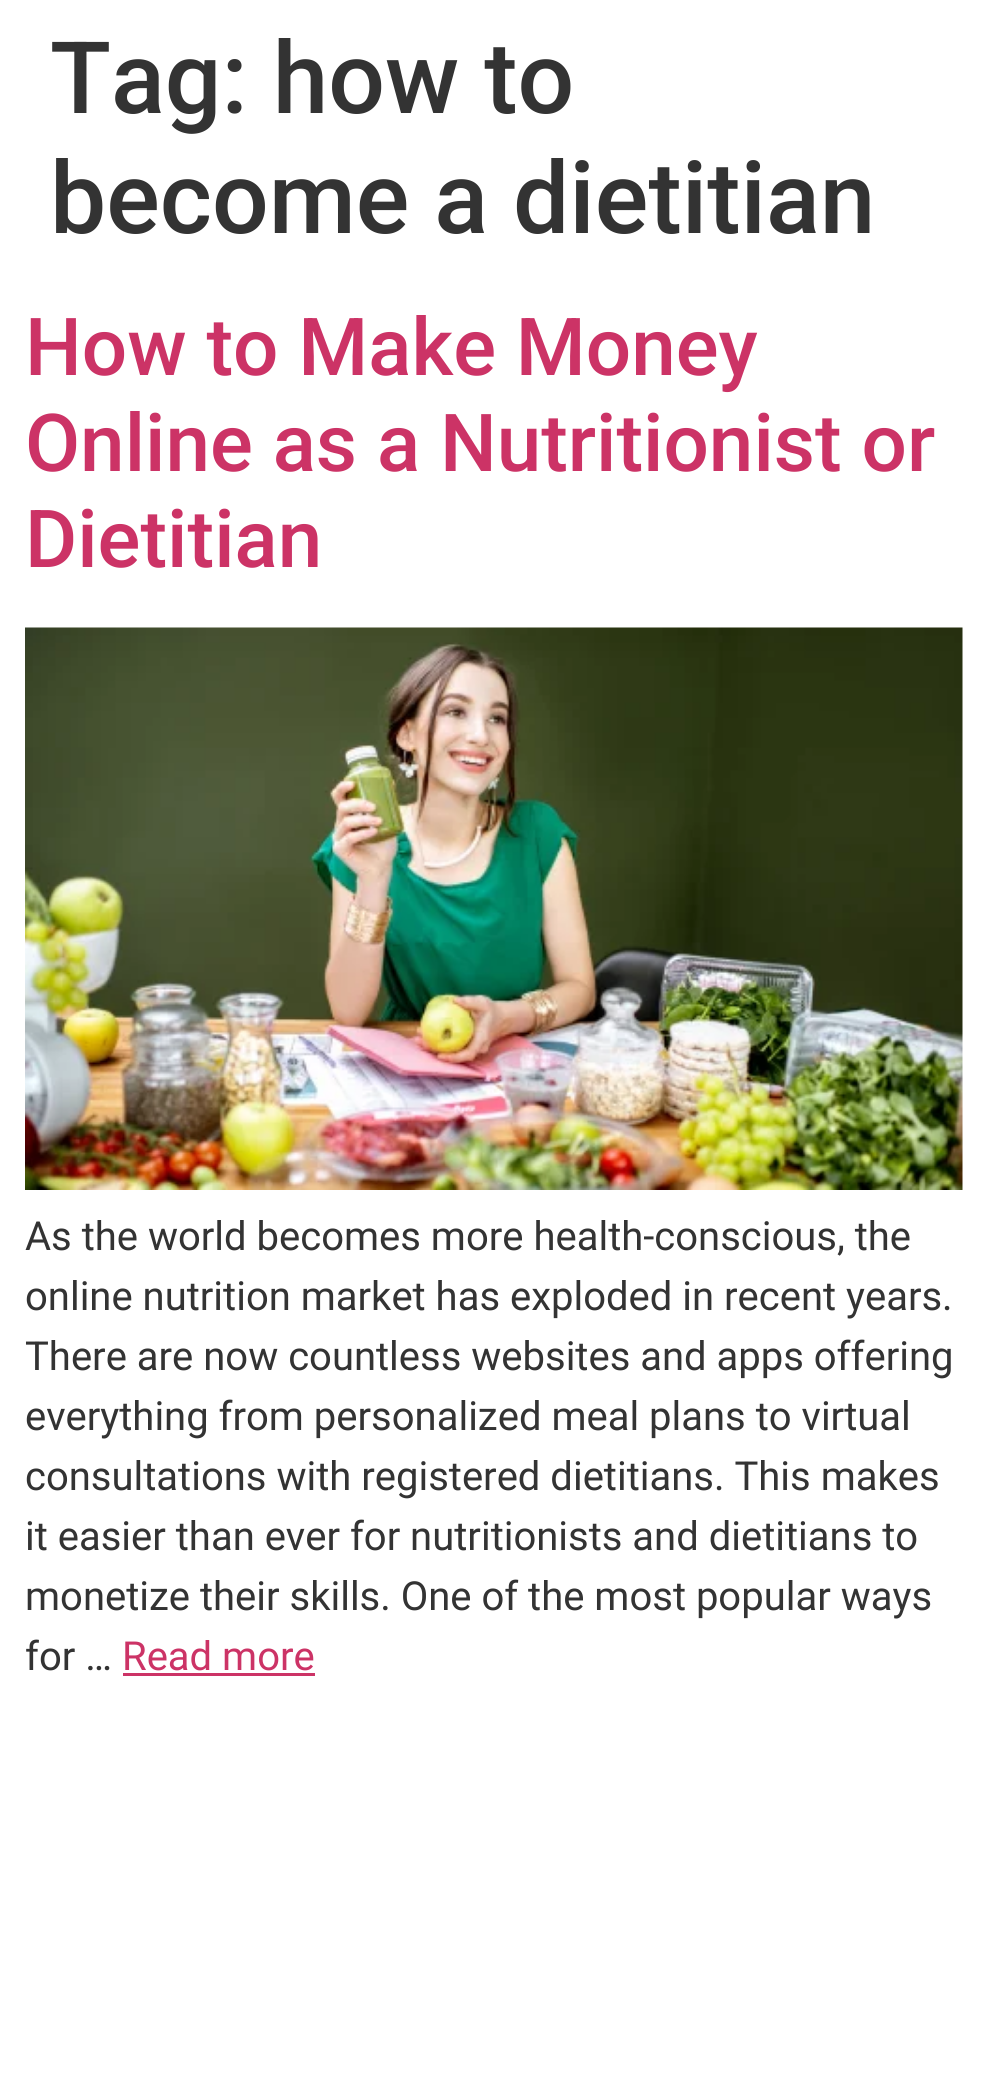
#include <cairo/cairo.h>
#include <math.h>
#include <stddef.h>

static cairo_t *cr;

static void use_color(int r, int g, int b) {
  cairo_set_source_rgb(cr, r / 255.0, g / 255.0, b / 255.0);
}

static void text(double x, double y, const char *s, const char *family, double size, int italic, int bold, int r, int g, int b) {
  cairo_select_font_face(cr, family, italic ? CAIRO_FONT_SLANT_ITALIC : CAIRO_FONT_SLANT_NORMAL,
    bold ? CAIRO_FONT_WEIGHT_BOLD : CAIRO_FONT_WEIGHT_NORMAL);
  cairo_set_font_size(cr, size);
  use_color(r, g, b);
  cairo_move_to(cr, x, y);
  cairo_show_text(cr, s);
}

static void box(double x, double y, double w, double h, int r, int g, int b) {
  use_color(r, g, b);
  cairo_rectangle(cr, x, y, w, h);
  cairo_fill(cr);
}

static void picture(const char *path, double x, double y, double w, double h) {
  cairo_surface_t *image = cairo_image_surface_create_from_png(path);
  cairo_save(cr);
  cairo_set_source_surface(cr, image, x, y);
  cairo_rectangle(cr, x, y, w, h);
  cairo_fill(cr);
  cairo_restore(cr);
  cairo_surface_destroy(image);
}

static void draw(void) {
  use_color(255, 255, 255);
  cairo_paint(cr);
  picture("img_01.png", 25, 627, 938, 563);
  box(123, 1673, 192, 3, 204, 51, 102);
  text(50, 113, "Tag: how to", "Roboto Medium", 100, 0, 0, 51, 51, 51);
  text(50, 233, "become a dietitian", "Roboto Medium", 100, 0, 0, 51, 51, 51);
  text(25, 375, "How to Make Money", "Roboto Medium", 80, 0, 0, 204, 51, 102);
  text(25, 471, "Online as a Nutritionist or", "Roboto Medium", 80, 0, 0, 204, 51, 102);
  text(25, 567, "Dietitian", "Roboto Medium", 80, 0, 0, 204, 51, 102);
  text(25, 1250, "As the world becomes more health-conscious, the", "Roboto", 40, 0, 0, 51, 51, 51);
  text(25, 1310, "online nutrition market has exploded in recent years.", "Roboto", 40, 0, 0, 51, 51, 51);
  text(25, 1370, "There are now countless websites and apps offering", "Roboto", 40, 0, 0, 51, 51, 51);
  text(25, 1430, "everything from personalized meal plans to virtual", "Roboto", 40, 0, 0, 51, 51, 51);
  text(25, 1490, "consultations with registered dietitians. This makes", "Roboto", 40, 0, 0, 51, 51, 51);
  text(25, 1550, "it easier than ever for nutritionists and dietitians to", "Roboto", 40, 0, 0, 51, 51, 51);
  text(25, 1610, "monetize their skills. One of the most popular ways", "Roboto", 40, 0, 0, 51, 51, 51);
  text(25, 1670, "for …", "Roboto", 40, 0, 0, 51, 51, 51);
  text(122, 1670, "Read more", "Roboto", 40, 0, 0, 204, 51, 102);
}

int main(void) {
  cairo_surface_t *surface = cairo_image_surface_create(CAIRO_FORMAT_RGB24, 986, 2089);
  cr = cairo_create(surface);
  cairo_font_options_t *options = cairo_font_options_create();
  cairo_font_options_set_hint_metrics(options, CAIRO_HINT_METRICS_OFF);
  cairo_font_options_set_hint_style(options, CAIRO_HINT_STYLE_NONE);
  cairo_set_font_options(cr, options);
  cairo_set_miter_limit(cr, 4);
  draw();
  cairo_surface_write_to_png(surface, "out.png");
  cairo_font_options_destroy(options);
  cairo_destroy(cr);
  cairo_surface_destroy(surface);
  return 0;
}
